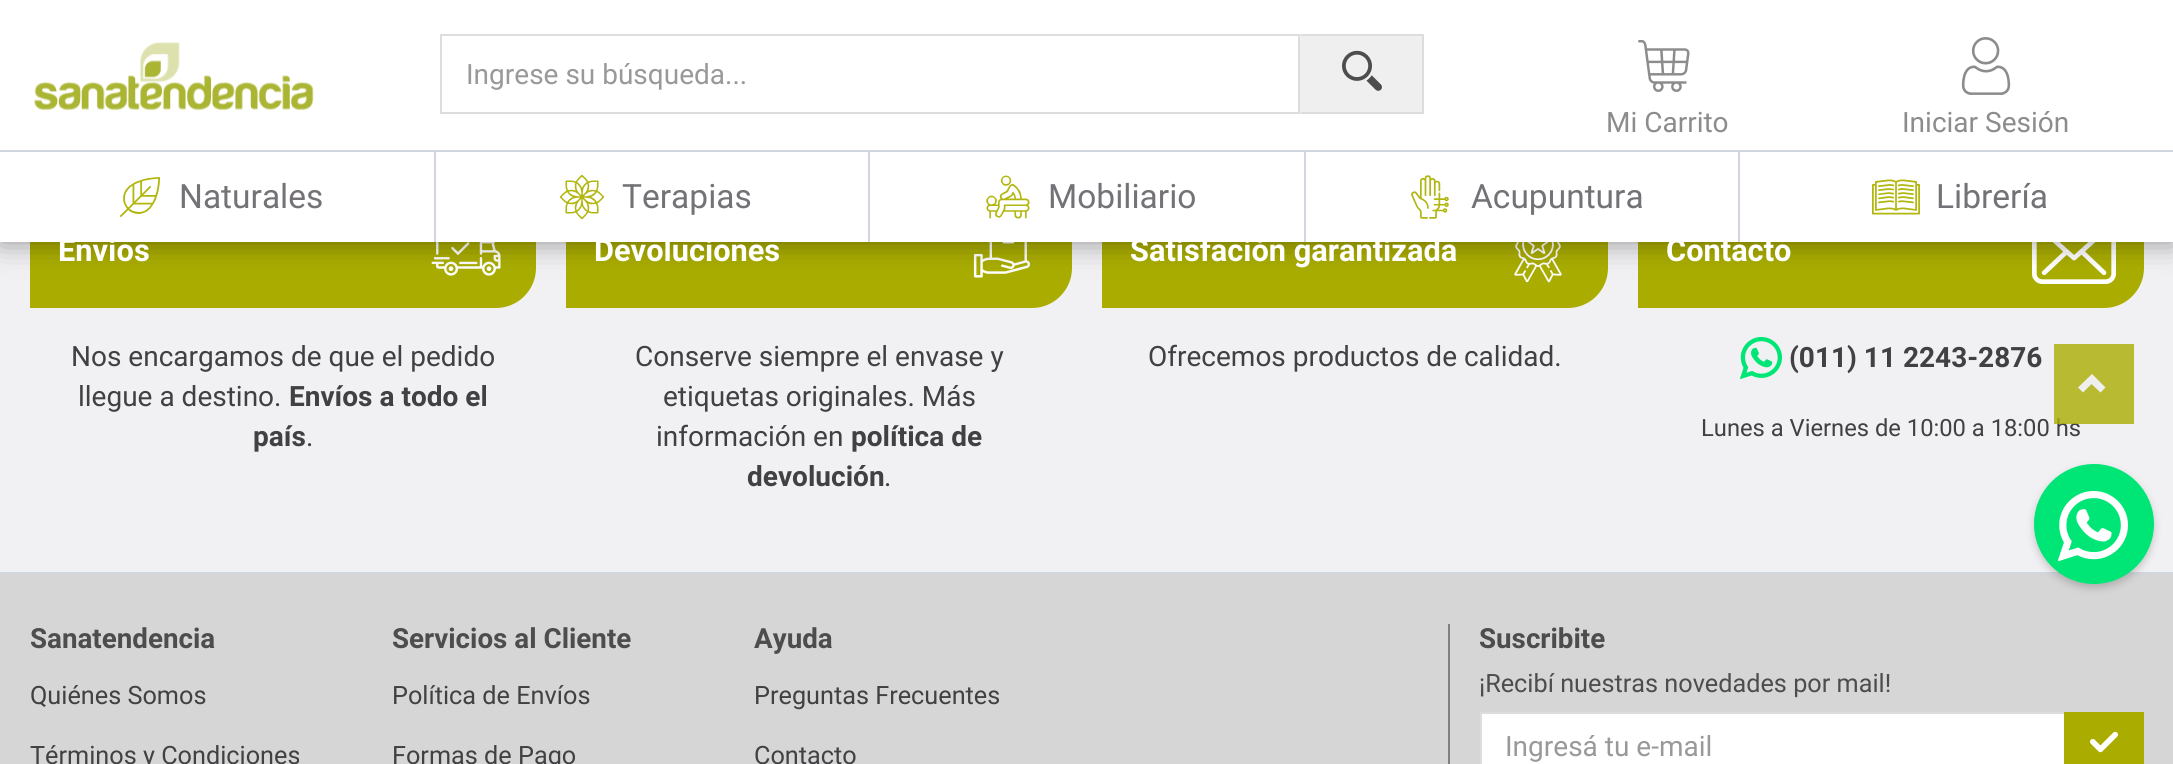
#include <cairo/cairo.h>
#include <math.h>
#include <stddef.h>

static cairo_t *cr;

static void use_color(int r, int g, int b) {
  cairo_set_source_rgb(cr, r / 255.0, g / 255.0, b / 255.0);
}

static void text(double x, double y, const char *s, const char *family, double size, int italic, int bold, int r, int g, int b) {
  cairo_select_font_face(cr, family, italic ? CAIRO_FONT_SLANT_ITALIC : CAIRO_FONT_SLANT_NORMAL,
    bold ? CAIRO_FONT_WEIGHT_BOLD : CAIRO_FONT_WEIGHT_NORMAL);
  cairo_set_font_size(cr, size);
  use_color(r, g, b);
  cairo_move_to(cr, x, y);
  cairo_show_text(cr, s);
}

static void box(double x, double y, double w, double h, int r, int g, int b) {
  use_color(r, g, b);
  cairo_rectangle(cr, x, y, w, h);
  cairo_fill(cr);
}

static void round_rect(double x, double y, double w, double h, double r) {
  cairo_new_sub_path(cr);
  cairo_arc(cr, x + w - r, y + h - r, r, 0, M_PI / 2);
  cairo_arc(cr, x + r, y + h - r, r, M_PI / 2, M_PI);
  cairo_arc(cr, x + r, y + r, r, M_PI, 1.5 * M_PI);
  cairo_arc(cr, x + w - r, y + r, r, 1.5 * M_PI, 2 * M_PI);
  cairo_close_path(cr);
}

static void shadow(double x, double y, double w, double h, double r, double blur, double alpha) {
  cairo_push_group_with_content(cr, CAIRO_CONTENT_ALPHA);
  cairo_set_operator(cr, CAIRO_OPERATOR_SOURCE);
  for (int i = 15; i >= -15 && fmin(w, h) + blur * i / 3 > 0; i -= 2) {
    double e = blur * i / 6;
    cairo_set_source_rgba(cr, 0, 0, 0, alpha * erfc((i - 1) / 8.5) / 2);
    round_rect(x - e, y - e, w + 2 * e, h + 2 * e, fmax(0, fmin(r + e + blur * .6, fmin(w, h) / 2 + e)));
    cairo_fill(cr);
  }
  cairo_pattern_t *soft = cairo_pop_group(cr);
  cairo_mask(cr, soft);
  cairo_pattern_destroy(soft);
}

static void picture(const char *path, double x, double y, double w, double h) {
  cairo_surface_t *image = cairo_image_surface_create_from_png(path);
  cairo_save(cr);
  cairo_set_source_surface(cr, image, x, y);
  cairo_rectangle(cr, x, y, w, h);
  cairo_fill(cr);
  cairo_restore(cr);
  cairo_surface_destroy(image);
}

static void draw(void) {
  use_color(241, 241, 243);
  cairo_paint(cr);
  use_color(170, 173, 0);
  cairo_new_path(cr);
  cairo_move_to(cr, 70, 196);
  cairo_line_to(cr, 536, 196);
  cairo_line_to(cr, 536, 268);
  cairo_curve_to(cr, 536, 290, 518, 308, 496, 308);
  cairo_line_to(cr, 30, 308);
  cairo_line_to(cr, 30, 236);
  cairo_curve_to(cr, 30, 214, 48, 196, 70, 196);
  cairo_close_path(cr);
  cairo_fill(cr);
  picture("img_10.png", 431, 242, 70, 34);
  cairo_new_path(cr);
  cairo_move_to(cr, 606, 196);
  cairo_line_to(cr, 1072, 196);
  cairo_line_to(cr, 1072, 268);
  cairo_curve_to(cr, 1072, 290, 1054, 308, 1032, 308);
  cairo_line_to(cr, 566, 308);
  cairo_line_to(cr, 566, 236);
  cairo_curve_to(cr, 566, 214, 584, 196, 606, 196);
  cairo_close_path(cr);
  cairo_fill(cr);
  picture("img_11.png", 973, 242, 57, 36);
  cairo_new_path(cr);
  cairo_move_to(cr, 1142, 196);
  cairo_line_to(cr, 1608, 196);
  cairo_line_to(cr, 1608, 268);
  cairo_curve_to(cr, 1608, 290, 1590, 308, 1568, 308);
  cairo_line_to(cr, 1102, 308);
  cairo_line_to(cr, 1102, 236);
  cairo_curve_to(cr, 1102, 214, 1120, 196, 1142, 196);
  cairo_close_path(cr);
  cairo_fill(cr);
  picture("img_12.png", 1514, 242, 48, 41);
  cairo_new_path(cr);
  cairo_move_to(cr, 1678, 196);
  cairo_line_to(cr, 2144, 196);
  cairo_line_to(cr, 2144, 268);
  cairo_curve_to(cr, 2144, 290, 2126, 308, 2104, 308);
  cairo_line_to(cr, 1638, 308);
  cairo_line_to(cr, 1638, 236);
  cairo_curve_to(cr, 1638, 214, 1656, 196, 1678, 196);
  cairo_close_path(cr);
  cairo_fill(cr);
  picture("img_13.png", 2032, 242, 84, 42);
  use_color(0, 0, 0);
  shadow(0, 150, 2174, 92, 0, 15, 0.4);
  box(0, 0, 2173, 150, 255, 255, 255);
  picture("img_01.png", 34, 42, 280, 69);
  cairo_rectangle(cr, 441, 35, 858, 78);
  use_color(221, 221, 221);
  cairo_stroke(cr);
  box(1300, 34, 122, 80, 239, 239, 239);
  use_color(221, 221, 221);
  cairo_new_path(cr);
  cairo_move_to(cr, 1300, 34);
  cairo_line_to(cr, 1424, 34);
  cairo_line_to(cr, 1422, 36);
  cairo_line_to(cr, 1302, 36);
  cairo_close_path(cr);
  cairo_fill(cr);
  box(1422, 34, 2, 80, 221, 221, 221);
  cairo_new_path(cr);
  cairo_move_to(cr, 1424, 114);
  cairo_line_to(cr, 1300, 114);
  cairo_line_to(cr, 1302, 112);
  cairo_line_to(cr, 1422, 112);
  cairo_close_path(cr);
  cairo_fill(cr);
  picture("img_02.png", 1342, 50, 40, 41);
  picture("img_03.png", 1638, 40, 52, 52);
  picture("img_04.png", 1961, 37, 50, 58);
  box(0, 152, 2173, 90, 255, 255, 255);
  box(0, 150, 2173, 2, 210, 214, 222);
  picture("img_05.png", 119, 177, 42, 40);
  box(434, 152, 2, 90, 210, 214, 222);
  picture("img_06.png", 559, 174, 46, 46);
  box(868, 152, 2, 90, 210, 214, 222);
  picture("img_07.png", 986, 175, 44, 44);
  picture("img_08.png", 1411, 175, 38, 44);
  picture("img_09.png", 1872, 179, 48, 36);
  box(0, 572, 2173, 2, 210, 214, 222);
  picture("img_14.png", 1740, 337, 42, 42);
  box(0, 574, 2173, 190, 214, 214, 214);
  box(1448, 624, 2, 140, 129, 127, 131);
  use_color(255, 255, 255);
  cairo_rectangle(cr, 1481, 713, 584, 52);
  cairo_fill_preserve(cr);
  use_color(221, 221, 221);
  cairo_stroke(cr);
  box(2064, 712, 80, 52, 170, 173, 0);
  picture("img_15.png", 2090, 731, 28, 22);
  use_color(0, 0, 0);
  shadow(2034, 468, 120, 120, 60, 4, 0.19);
  use_color(0, 230, 118);
  cairo_arc(cr, 2094, 524, 60, 0, 2 * M_PI);
  cairo_fill(cr);
  picture("img_16.png", 2058, 491, 70, 70);
  text(466, 84, "Ingrese su búsqueda...", "Roboto", 28, 0, 0, 153, 153, 153);
  text(1606, 132, "Mi Carrito", "Roboto", 28, 0, 0, 140, 140, 140);
  text(1902, 132, "Iniciar Sesión", "Roboto", 28, 0, 0, 140, 140, 140);
  text(179, 208, "Naturales", "Roboto", 33.5, 0, 0, 116, 114, 118);
  text(622, 208, "Terapias", "Roboto", 33.5, 0, 0, 116, 114, 118);
  text(1048, 208, "Mobiliario", "Roboto", 33.5, 0, 0, 116, 114, 118);
  text(1471, 208, "Acupuntura", "Roboto", 33.5, 0, 0, 116, 114, 118);
  text(1936, 208, "Librería", "Roboto", 33.5, 0, 0, 116, 114, 118);
  text(58, 261, "Envíos", "Roboto", 30.75, 0, 1, 255, 255, 255);
  text(71, 366, "Nos encargamos de que el pedido", "Roboto", 28, 0, 0, 65, 64, 66);
  text(78, 406, "llegue a destino.", "Roboto", 28, 0, 0, 65, 64, 66);
  text(289, 406, "Envíos a todo el", "Roboto", 28, 0, 1, 65, 64, 66);
  text(253, 446, "país", "Roboto", 28, 0, 1, 65, 64, 66);
  text(306, 446, ".", "Roboto", 28, 0, 0, 65, 64, 66);
  text(594, 261, "Devoluciones", "Roboto", 30.75, 0, 1, 255, 255, 255);
  text(635, 366, "Conserve siempre el envase y", "Roboto", 28, 0, 0, 65, 64, 66);
  text(663, 406, "etiquetas originales. Más", "Roboto", 28, 0, 0, 65, 64, 66);
  text(656, 446, "información en", "Roboto", 28, 0, 0, 65, 64, 66);
  text(851, 446, "política de", "Roboto", 28, 0, 1, 65, 64, 66);
  text(747, 486, "devolución", "Roboto", 28, 0, 1, 65, 64, 66);
  text(884, 486, ".", "Roboto", 28, 0, 0, 65, 64, 66);
  text(1130, 261, "Satisfación garantizada", "Roboto", 30.75, 0, 1, 255, 255, 255);
  box(1304, 152, 2, 90, 210, 214, 222);
  text(1148, 366, "Ofrecemos productos de calidad.", "Roboto", 28, 0, 0, 65, 64, 66);
  text(1666, 261, "Contacto", "Roboto", 30.75, 0, 1, 255, 255, 255);
  box(1738, 152, 2, 90, 210, 214, 222);
  text(1789, 367, "(011) 11 2243-2876", "Roboto", 28, 0, 1, 65, 64, 66);
  text(1701, 436, "Lunes a Viernes de 10:00 a 18:00 hs", "Roboto", 23.75, 0, 0, 65, 64, 66);
  text(30, 648, "Sanatendencia", "Roboto", 27.75, 0, 1, 77, 77, 77);
  text(30, 704, "Quiénes Somos", "Roboto", 25.25, 0, 0, 65, 64, 66);
  text(30, 764, "Términos y Condiciones", "Roboto", 25.25, 0, 0, 65, 64, 66);
  text(392, 648, "Servicios al Cliente", "Roboto", 27.75, 0, 1, 77, 77, 77);
  text(392, 704, "Política de Envíos", "Roboto", 25.25, 0, 0, 65, 64, 66);
  text(392, 764, "Formas de Pago", "Roboto", 25.25, 0, 0, 65, 64, 66);
  text(754, 648, "Ayuda", "Roboto", 27.75, 0, 1, 77, 77, 77);
  text(754, 704, "Preguntas Frecuentes", "Roboto", 25.25, 0, 0, 65, 64, 66);
  text(754, 764, "Contacto", "Roboto", 25.25, 0, 0, 65, 64, 66);
  text(1479, 648, "Suscribite", "Roboto", 27.75, 0, 1, 77, 77, 77);
  text(1479, 692, "¡Recibí nuestras novedades por mail!", "Roboto", 25.25, 0, 0, 77, 77, 77);
  text(1505, 756, "Ingresá tu e-mail", "Roboto", 28, 0, 0, 153, 153, 153);
  cairo_set_source_rgba(cr, 0.667, 0.678, 0, 0.8);
  cairo_rectangle(cr, 2054, 344, 80, 80);
  cairo_fill(cr);
  use_color(239, 239, 239);
  cairo_new_path(cr);
  cairo_move_to(cr, 2105.5, 387.5);
  cairo_line_to(cr, 2100.5, 392.5);
  cairo_line_to(cr, 2091.5, 384);
  cairo_line_to(cr, 2083, 392.5);
  cairo_line_to(cr, 2078, 387.5);
  cairo_line_to(cr, 2092, 374);
  cairo_close_path(cr);
  cairo_fill(cr);
}

int main(void) {
  cairo_surface_t *surface = cairo_image_surface_create(CAIRO_FORMAT_RGB24, 2173, 764);
  cr = cairo_create(surface);
  cairo_font_options_t *options = cairo_font_options_create();
  cairo_font_options_set_hint_metrics(options, CAIRO_HINT_METRICS_OFF);
  cairo_font_options_set_hint_style(options, CAIRO_HINT_STYLE_NONE);
  cairo_set_font_options(cr, options);
  cairo_set_miter_limit(cr, 4);
  draw();
  cairo_surface_write_to_png(surface, "out.png");
  cairo_font_options_destroy(options);
  cairo_destroy(cr);
  cairo_surface_destroy(surface);
  return 0;
}
